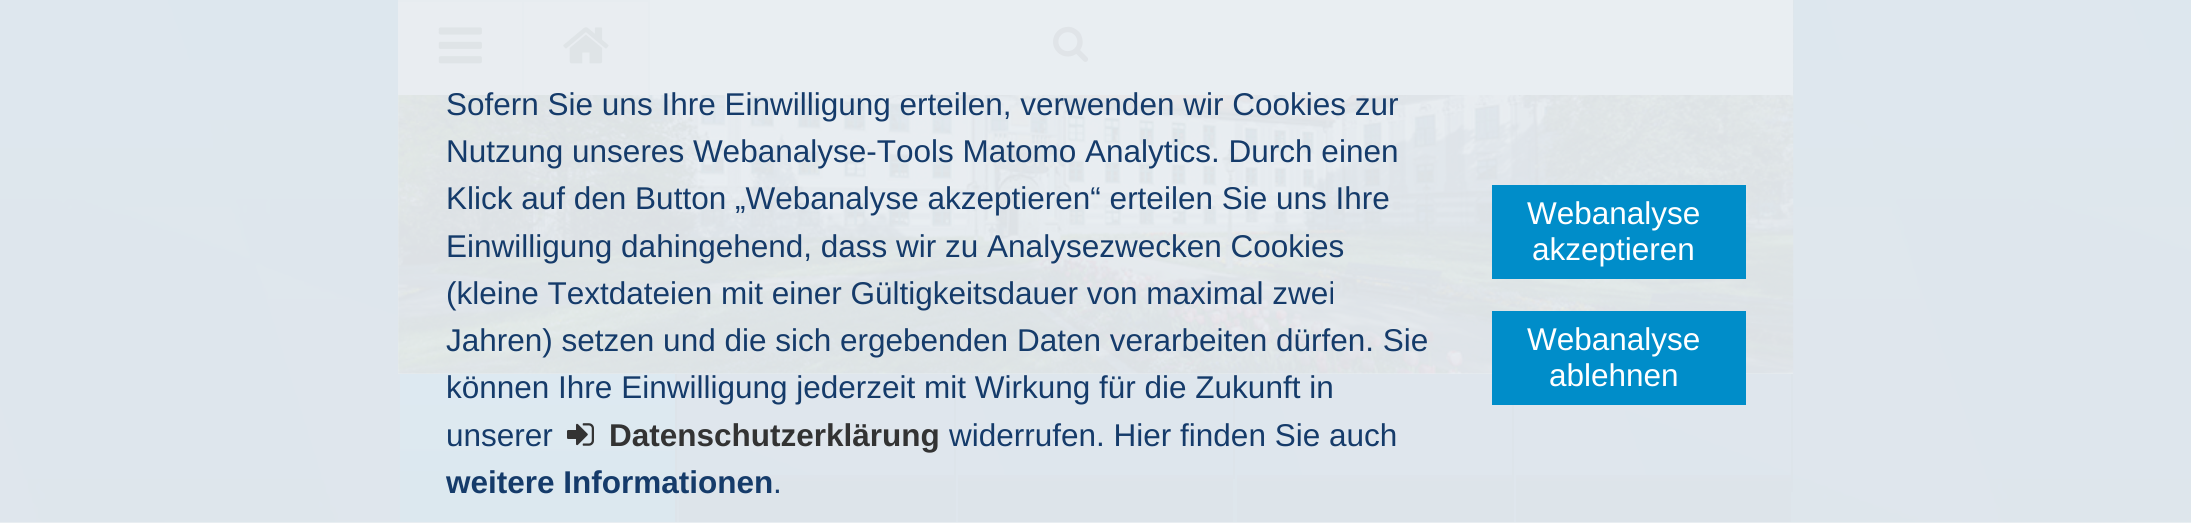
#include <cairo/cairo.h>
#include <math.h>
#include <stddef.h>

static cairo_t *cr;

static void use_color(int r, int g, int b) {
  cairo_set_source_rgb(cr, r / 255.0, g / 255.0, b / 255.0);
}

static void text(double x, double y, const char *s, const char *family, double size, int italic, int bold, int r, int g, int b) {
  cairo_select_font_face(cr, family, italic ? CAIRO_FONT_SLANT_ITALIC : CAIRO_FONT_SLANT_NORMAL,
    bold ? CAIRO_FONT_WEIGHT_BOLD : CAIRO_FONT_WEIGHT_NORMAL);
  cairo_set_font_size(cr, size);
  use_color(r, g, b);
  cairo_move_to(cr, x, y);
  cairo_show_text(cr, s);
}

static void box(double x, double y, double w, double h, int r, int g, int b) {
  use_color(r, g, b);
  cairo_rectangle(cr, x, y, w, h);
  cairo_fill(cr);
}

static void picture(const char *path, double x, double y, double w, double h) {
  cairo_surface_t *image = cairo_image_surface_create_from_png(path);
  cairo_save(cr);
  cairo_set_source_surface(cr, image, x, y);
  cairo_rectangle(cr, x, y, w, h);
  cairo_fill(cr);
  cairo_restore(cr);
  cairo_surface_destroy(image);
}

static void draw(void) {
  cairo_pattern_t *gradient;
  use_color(233, 238, 242);
  cairo_paint(cr);
  picture("img_01.png", 0, 0, 2191, 522);
  box(398, 95, 1395, 279, 233, 238, 242);
  picture("img_02.png", 398, 0, 1396, 374);
  box(650, 0, 1143, 95, 233, 238, 242);
  box(398, 2, 124, 93, 233, 237, 241);
  box(398, 0, 252, 2, 231, 236, 240);
  box(522, 0, 2, 95, 231, 236, 240);
  picture("img_03.png", 438, 27, 44, 37);
  box(524, 2, 124, 93, 233, 237, 241);
  box(648, 0, 2, 95, 231, 236, 240);
  picture("img_04.png", 563, 27, 46, 37);
  picture("img_05.png", 1053, 26, 36, 36);
  gradient = cairo_pattern_create_linear(538, 374, 538, 522);
  cairo_pattern_add_color_stop_rgba(gradient, 0, 0.867, 0.914, 0.945, 1);
  cairo_pattern_add_color_stop_rgba(gradient, 0.91, 0.863, 0.91, 0.937, 1);
  cairo_set_source(cr, gradient);
  cairo_pattern_destroy(gradient);
  cairo_rectangle(cr, 400, 374, 275, 148);
  cairo_fill(cr);
  box(675, 374, 2, 148, 221, 228, 234);
  gradient = cairo_pattern_create_linear(817, 374, 817, 522);
  cairo_pattern_add_color_stop_rgba(gradient, 0, 0.875, 0.902, 0.925, 1);
  cairo_pattern_add_color_stop_rgba(gradient, 0.91, 0.867, 0.894, 0.918, 1);
  cairo_set_source(cr, gradient);
  cairo_pattern_destroy(gradient);
  cairo_rectangle(cr, 679, 475, 275, 47);
  cairo_fill(cr);
  box(954, 374, 2, 148, 221, 228, 234);
  gradient = cairo_pattern_create_linear(1096, 374, 1096, 522);
  cairo_pattern_add_color_stop_rgba(gradient, 0, 0.875, 0.902, 0.925, 1);
  cairo_pattern_add_color_stop_rgba(gradient, 0.91, 0.867, 0.894, 0.918, 1);
  cairo_set_source(cr, gradient);
  cairo_pattern_destroy(gradient);
  cairo_rectangle(cr, 958, 475, 275, 47);
  cairo_fill(cr);
  box(1233, 374, 2, 105, 221, 228, 234);
  gradient = cairo_pattern_create_linear(1375, 374, 1375, 522);
  cairo_pattern_add_color_stop_rgba(gradient, 0, 0.875, 0.902, 0.925, 1);
  cairo_pattern_add_color_stop_rgba(gradient, 0.91, 0.867, 0.894, 0.918, 1);
  cairo_set_source(cr, gradient);
  cairo_pattern_destroy(gradient);
  cairo_rectangle(cr, 1237, 475, 275, 47);
  cairo_fill(cr);
  box(1512, 405, 2, 117, 221, 228, 234);
  gradient = cairo_pattern_create_linear(1654, 374, 1654, 522);
  cairo_pattern_add_color_stop_rgba(gradient, 0, 0.875, 0.902, 0.925, 1);
  cairo_pattern_add_color_stop_rgba(gradient, 0.91, 0.867, 0.894, 0.918, 1);
  cairo_set_source(cr, gradient);
  cairo_pattern_destroy(gradient);
  cairo_rectangle(cr, 1516, 475, 275, 47);
  cairo_fill(cr);
  box(1791, 374, 2, 118, 221, 228, 234);
  picture("img_06.png", 567, 423, 27, 23);
  box(1492, 185, 254, 94, 0, 141, 201);
  box(1492, 311, 254, 94, 0, 141, 201);
  text(446, 115, "Sofern Sie uns Ihre Einwilligung erteilen, verwenden wir Cookies zur", "Liberation Sans", 31.5, 0, 0, 21, 59, 106);
  text(446, 162, "Nutzung unseres Webanalyse-Tools Matomo Analytics. Durch einen", "Liberation Sans", 31.5, 0, 0, 21, 59, 106);
  text(446, 209, "Klick auf den Button „Webanalyse akzeptieren“ erteilen Sie uns Ihre", "Liberation Sans", 31.5, 0, 0, 21, 59, 106);
  text(446, 257, "Einwilligung dahingehend, dass wir zu Analysezwecken Cookies", "Liberation Sans", 31.5, 0, 0, 21, 59, 106);
  text(446, 304, "(kleine Textdateien mit einer Gültigkeitsdauer von maximal zwei", "Liberation Sans", 31.5, 0, 0, 21, 59, 106);
  text(446, 351, "Jahren) setzen und die sich ergebenden Daten verarbeiten dürfen. Sie", "Liberation Sans", 31.5, 0, 0, 21, 59, 106);
  text(446, 398, "können Ihre Einwilligung jederzeit mit Wirkung für die Zukunft in", "Liberation Sans", 31.5, 0, 0, 21, 59, 106);
  text(446, 446, "unserer", "Liberation Sans", 31.5, 0, 0, 21, 59, 106);
  text(609, 446, "Datenschutzerklärung", "Liberation Sans", 31.5, 0, 1, 51, 51, 51);
  text(949, 446, "widerrufen. Hier finden Sie auch", "Liberation Sans", 31.5, 0, 0, 21, 59, 106);
  text(446, 493, "weitere Informationen", "Liberation Sans", 31.5, 0, 1, 21, 59, 106);
  text(773, 493, ".", "Liberation Sans", 31.5, 0, 0, 21, 59, 106);
  text(1527, 224, "Webanalyse", "Liberation Sans", 31.5, 0, 0, 255, 255, 255);
  text(1532, 260, "akzeptieren", "Liberation Sans", 31.5, 0, 0, 255, 255, 255);
  text(1527, 350, "Webanalyse", "Liberation Sans", 31.5, 0, 0, 255, 255, 255);
  text(1549, 386, "ablehnen", "Liberation Sans", 31.5, 0, 0, 255, 255, 255);
}

int main(void) {
  cairo_surface_t *surface = cairo_image_surface_create(CAIRO_FORMAT_RGB24, 2191, 523);
  cr = cairo_create(surface);
  cairo_font_options_t *options = cairo_font_options_create();
  cairo_font_options_set_hint_metrics(options, CAIRO_HINT_METRICS_OFF);
  cairo_font_options_set_hint_style(options, CAIRO_HINT_STYLE_NONE);
  cairo_set_font_options(cr, options);
  cairo_set_miter_limit(cr, 4);
  draw();
  cairo_surface_write_to_png(surface, "out.png");
  cairo_font_options_destroy(options);
  cairo_destroy(cr);
  cairo_surface_destroy(surface);
  return 0;
}
